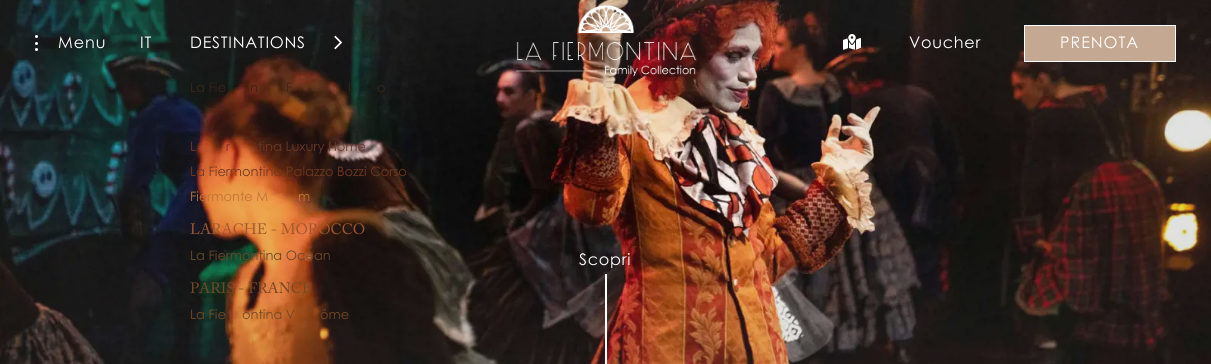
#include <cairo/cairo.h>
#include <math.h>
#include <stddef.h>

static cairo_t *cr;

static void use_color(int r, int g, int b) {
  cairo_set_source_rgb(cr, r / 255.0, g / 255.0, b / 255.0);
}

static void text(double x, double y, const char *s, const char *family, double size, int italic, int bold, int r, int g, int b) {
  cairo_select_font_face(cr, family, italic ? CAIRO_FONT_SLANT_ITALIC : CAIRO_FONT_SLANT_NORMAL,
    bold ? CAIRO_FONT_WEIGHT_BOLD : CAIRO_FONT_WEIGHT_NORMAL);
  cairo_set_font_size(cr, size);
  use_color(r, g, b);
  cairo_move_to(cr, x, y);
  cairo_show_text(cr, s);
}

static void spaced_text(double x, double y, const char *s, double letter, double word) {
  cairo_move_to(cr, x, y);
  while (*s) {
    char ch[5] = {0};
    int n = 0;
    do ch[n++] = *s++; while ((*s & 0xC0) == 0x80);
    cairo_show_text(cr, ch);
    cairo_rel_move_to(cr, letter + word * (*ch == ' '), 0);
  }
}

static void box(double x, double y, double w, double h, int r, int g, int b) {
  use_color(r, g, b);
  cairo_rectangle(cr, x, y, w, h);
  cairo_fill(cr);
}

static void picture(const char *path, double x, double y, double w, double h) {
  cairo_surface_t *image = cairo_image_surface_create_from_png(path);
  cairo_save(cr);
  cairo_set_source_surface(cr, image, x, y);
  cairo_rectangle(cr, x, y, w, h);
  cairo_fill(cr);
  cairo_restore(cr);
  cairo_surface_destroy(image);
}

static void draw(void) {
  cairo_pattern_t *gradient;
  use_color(255, 255, 255);
  cairo_paint(cr);
  picture("img_05.png", 0, 363, 1211, 1);
  picture("img_04.png", 0, 0, 1211, 364);
  gradient = cairo_pattern_create_radial(0, 0, 0, 0, 0, 1);
  cairo_pattern_set_matrix(gradient, &(cairo_matrix_t){1.0 / 606, 0, 0, 1.0 / 182, -1.0 * 606 / 606, -1.0 * 182 / 182});
  cairo_pattern_add_color_stop_rgba(gradient, 0, 0.376, 0.376, 0.376, 0);
  cairo_pattern_add_color_stop_rgba(gradient, 1, 0.376, 0.376, 0.376, 0.19);
  cairo_set_source(cr, gradient);
  cairo_pattern_destroy(gradient);
  cairo_rectangle(cr, 0, 0, 1211, 364);
  cairo_fill(cr);
  use_color(255, 255, 255);
  cairo_arc(cr, 36.5, 36.5, 1.5, 0, 2 * M_PI);
  cairo_fill(cr);
  cairo_arc(cr, 36.5, 43.5, 1.5, 0, 2 * M_PI);
  cairo_fill(cr);
  cairo_arc(cr, 36.5, 49.5, 1.5, 0, 2 * M_PI);
  cairo_fill(cr);
  picture("img_01.png", 334, 35, 9, 15);
  picture("img_02.png", 516, 5, 180, 72);
  picture("img_03.png", 843, 34, 18, 16);
  use_color(197, 168, 145);
  cairo_rectangle(cr, 1024.5, 25.5, 151, 36);
  cairo_fill_preserve(cr);
  use_color(255, 255, 255);
  cairo_set_line_width(cr, 1);
  cairo_stroke(cr);
  box(605, 274, 2, 90, 255, 255, 255);
  cairo_select_font_face(cr, "Century Gothic", CAIRO_FONT_SLANT_NORMAL, CAIRO_FONT_WEIGHT_NORMAL);
  cairo_set_font_size(cr, 16);
  spaced_text(58, 48, "Menu", 1, 0);
  spaced_text(140, 48, "IT", 1, 0);
  spaced_text(190, 48, "DESTINATIONS", 0.75, 0);
  text(190, 92, "La Fie", "Century Gothic", 13, 0, 0, 57, 37, 25);
  text(250, 92, "n", "Century Gothic", 13, 0, 0, 57, 37, 25);
  text(286, 92, "F", "Century Gothic", 13, 0, 0, 57, 37, 25);
  text(348, 92, "l", "Century Gothic", 13, 0, 0, 57, 37, 25);
  text(377, 92, "o", "Century Gothic", 13, 0, 0, 57, 37, 25);
  text(190, 151, "L", "Century Gothic", 13, 0, 0, 107, 56, 41);
  text(226, 151, "r", "Century Gothic", 13, 0, 0, 107, 56, 41);
  text(258, 151, "tina Luxury Home", "Century Gothic", 13, 0, 0, 107, 56, 41);
  text(190, 176, "La Fiermontina Palazzo Bozzi Corso", "Century Gothic", 13, 0, 0, 112, 56, 30);
  text(190, 201, "Fiermonte M", "Century Gothic", 13, 0, 0, 193, 115, 56);
  text(298, 201, "m", "Century Gothic", 13, 0, 0, 193, 115, 56);
  text(190, 234, "LARACHE - MOROCCO", "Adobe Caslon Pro", 15, 0, 0, 158, 88, 45);
  text(190, 260, "La Fiermontina Ocean", "Century Gothic", 13, 0, 0, 103, 73, 41);
  text(190, 293, "PARIS - FRANCE", "Adobe Caslon Pro", 15, 0, 0, 116, 72, 38);
  text(190, 319, "La Fie", "Century Gothic", 13, 0, 0, 116, 72, 38);
  text(242, 319, "ontina V", "Century Gothic", 13, 0, 0, 116, 72, 38);
  text(320, 319, "ôme", "Century Gothic", 13, 0, 0, 116, 72, 38);
  cairo_set_font_size(cr, 16);
  use_color(255, 255, 255);
  spaced_text(909, 48, "Voucher", 0.75, 0);
  spaced_text(1060, 48, "PRENOTA", 1, 0);
  spaced_text(579, 265, "Scopri", 0.75, 0);
}

int main(void) {
  cairo_surface_t *surface = cairo_image_surface_create(CAIRO_FORMAT_RGB24, 1211, 364);
  cr = cairo_create(surface);
  cairo_font_options_t *options = cairo_font_options_create();
  cairo_font_options_set_hint_metrics(options, CAIRO_HINT_METRICS_OFF);
  cairo_font_options_set_hint_style(options, CAIRO_HINT_STYLE_NONE);
  cairo_set_font_options(cr, options);
  cairo_set_miter_limit(cr, 4);
  draw();
  cairo_surface_write_to_png(surface, "out.png");
  cairo_font_options_destroy(options);
  cairo_destroy(cr);
  cairo_surface_destroy(surface);
  return 0;
}
